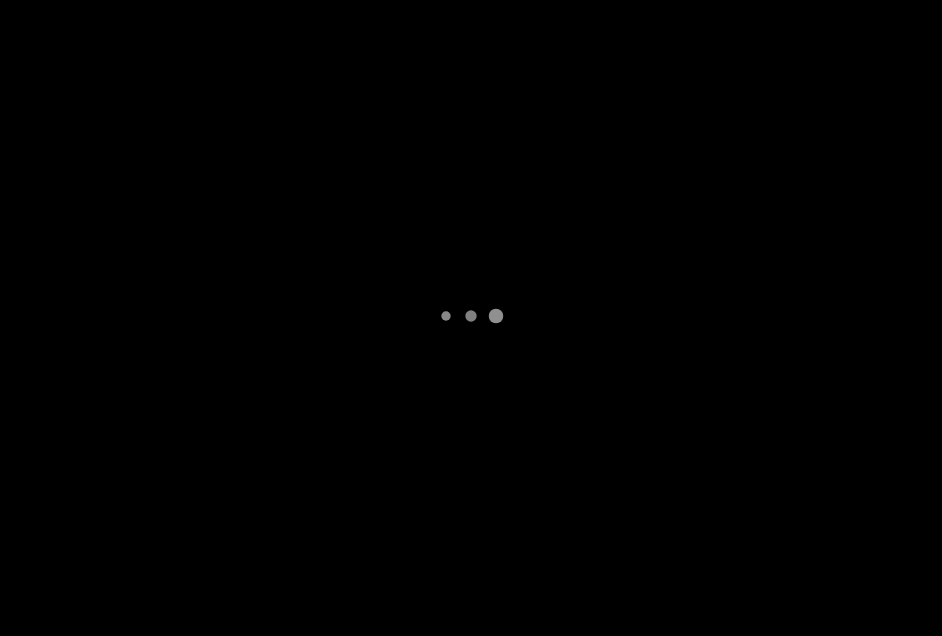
#include <cairo/cairo.h>
#include <math.h>
#include <stddef.h>

static cairo_t *cr;

static void use_color(int r, int g, int b) {
  cairo_set_source_rgb(cr, r / 255.0, g / 255.0, b / 255.0);
}

static void picture(const char *path, double x, double y, double w, double h) {
  cairo_surface_t *image = cairo_image_surface_create_from_png(path);
  cairo_save(cr);
  cairo_set_source_surface(cr, image, x, y);
  cairo_rectangle(cr, x, y, w, h);
  cairo_fill(cr);
  cairo_restore(cr);
  cairo_surface_destroy(image);
}

static void draw(void) {
  use_color(0, 0, 0);
  cairo_paint(cr);
  picture("img_01.png", 441, 308, 63, 16);
}

int main(void) {
  cairo_surface_t *surface = cairo_image_surface_create(CAIRO_FORMAT_RGB24, 942, 636);
  cr = cairo_create(surface);
  cairo_font_options_t *options = cairo_font_options_create();
  cairo_font_options_set_hint_metrics(options, CAIRO_HINT_METRICS_OFF);
  cairo_font_options_set_hint_style(options, CAIRO_HINT_STYLE_NONE);
  cairo_set_font_options(cr, options);
  cairo_set_miter_limit(cr, 4);
  draw();
  cairo_surface_write_to_png(surface, "out.png");
  cairo_font_options_destroy(options);
  cairo_destroy(cr);
  cairo_surface_destroy(surface);
  return 0;
}
